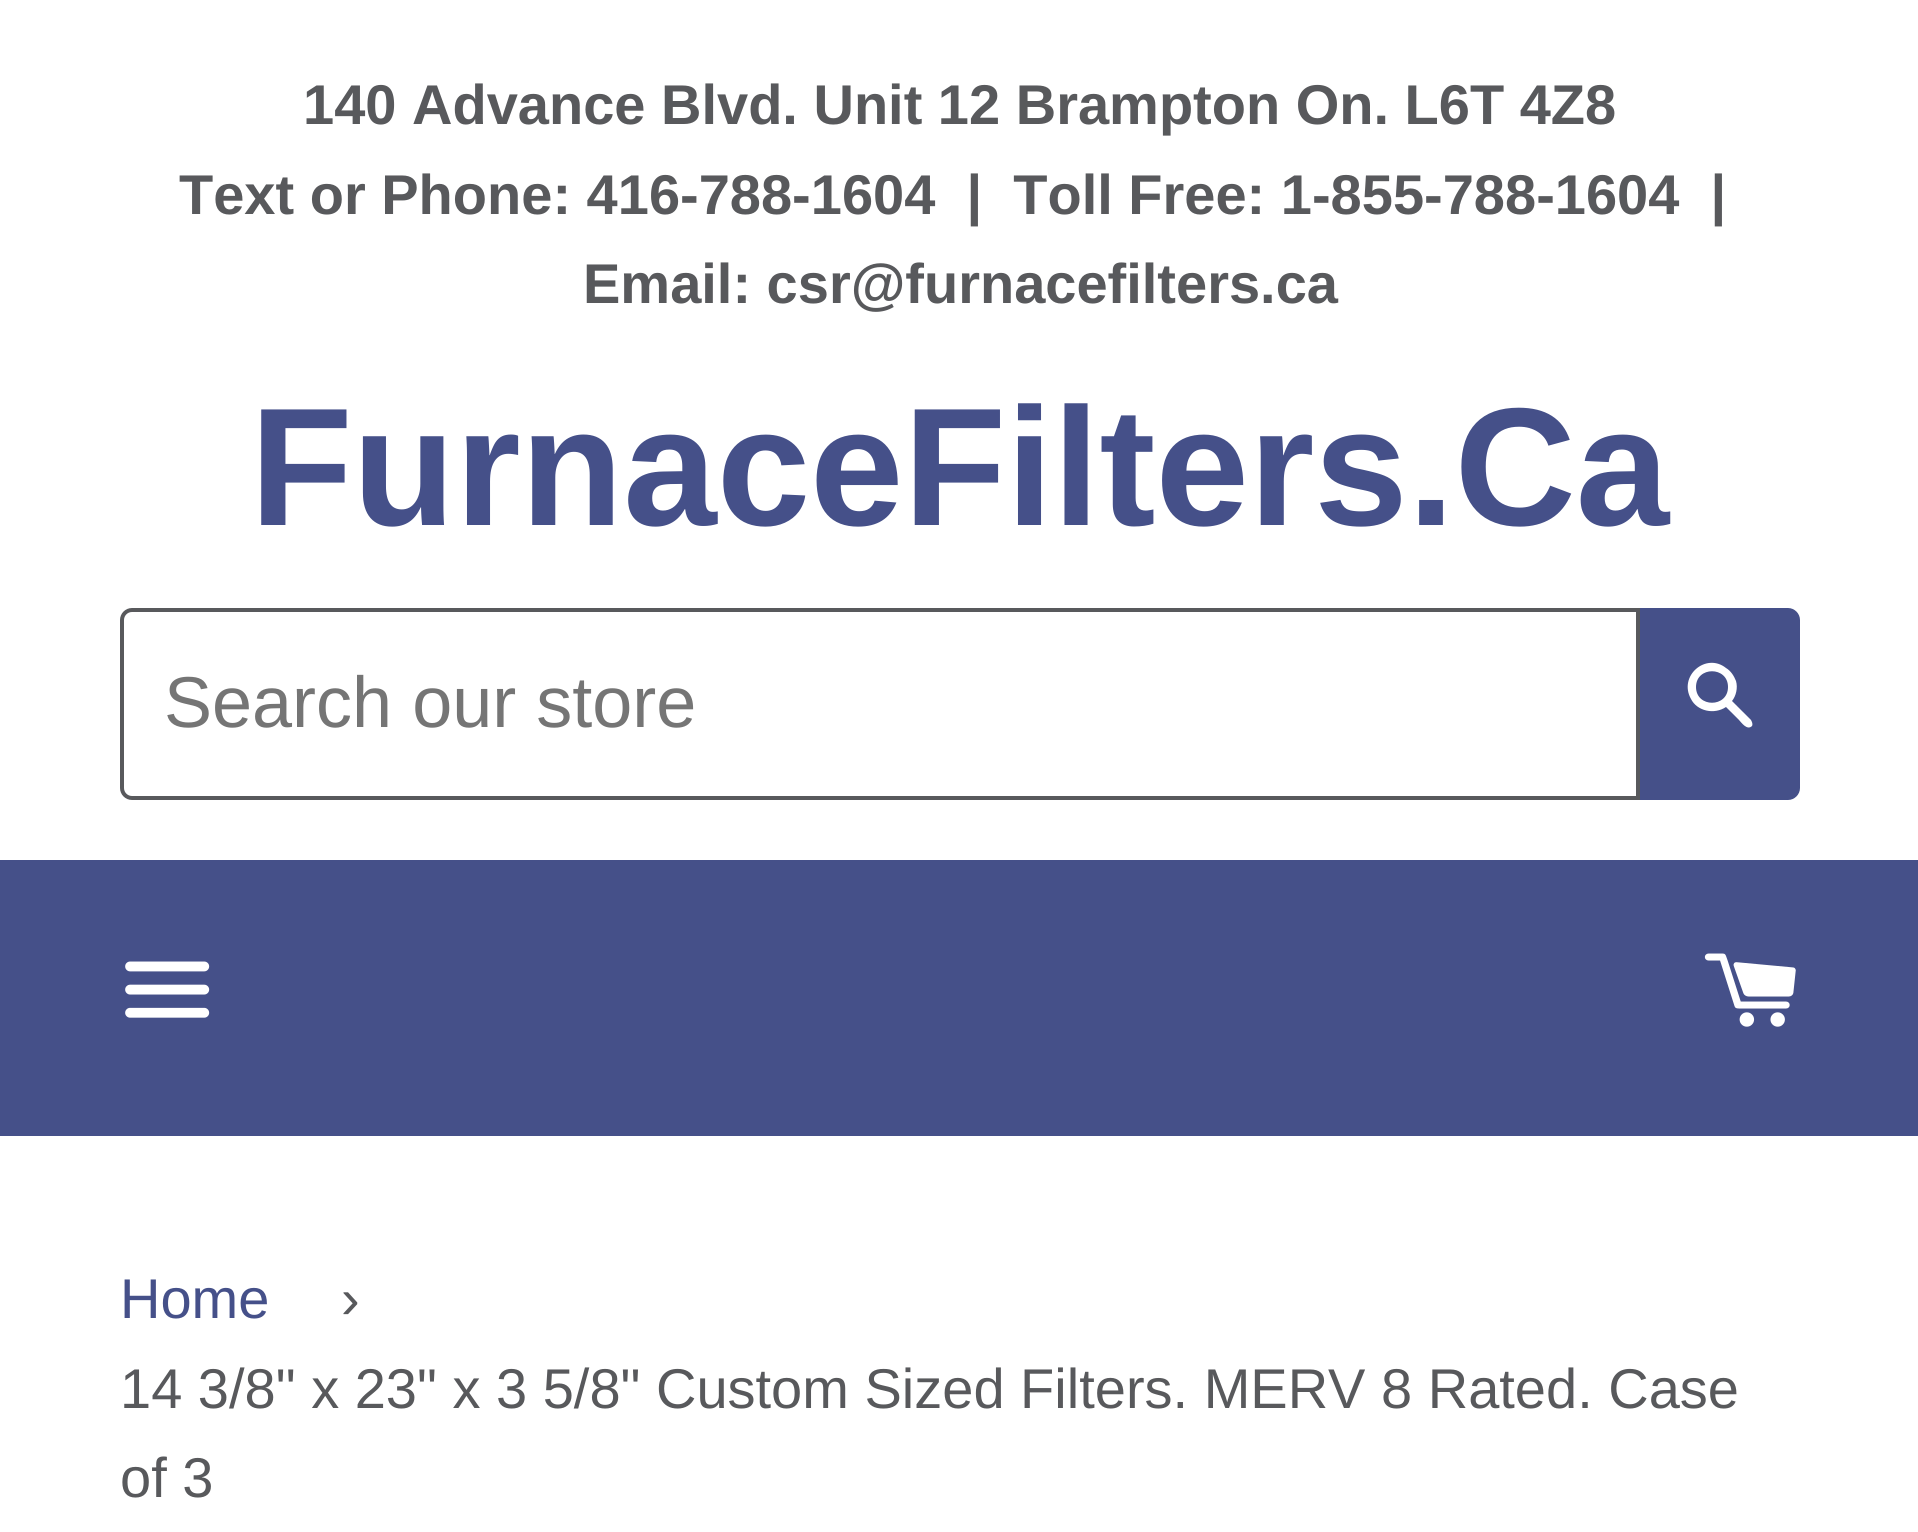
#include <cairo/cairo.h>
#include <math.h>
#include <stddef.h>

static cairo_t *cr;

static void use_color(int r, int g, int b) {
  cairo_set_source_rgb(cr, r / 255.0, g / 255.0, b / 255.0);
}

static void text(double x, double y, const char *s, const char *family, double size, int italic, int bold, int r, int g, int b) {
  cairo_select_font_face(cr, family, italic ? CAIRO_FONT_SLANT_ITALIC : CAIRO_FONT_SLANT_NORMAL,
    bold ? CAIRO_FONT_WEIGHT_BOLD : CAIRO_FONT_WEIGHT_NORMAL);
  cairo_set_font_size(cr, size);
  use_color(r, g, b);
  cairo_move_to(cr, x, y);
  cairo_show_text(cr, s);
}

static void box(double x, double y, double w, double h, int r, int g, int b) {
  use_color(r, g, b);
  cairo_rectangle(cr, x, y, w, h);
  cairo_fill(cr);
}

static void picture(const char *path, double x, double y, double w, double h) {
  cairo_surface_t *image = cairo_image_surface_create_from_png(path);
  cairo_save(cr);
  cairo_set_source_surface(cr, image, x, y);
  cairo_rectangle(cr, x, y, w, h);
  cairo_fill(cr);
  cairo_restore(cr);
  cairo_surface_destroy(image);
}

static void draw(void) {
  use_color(255, 255, 255);
  cairo_paint(cr);
  cairo_new_path(cr);
  cairo_move_to(cr, 132, 610);
  cairo_line_to(cr, 1638, 610);
  cairo_line_to(cr, 1638, 798);
  cairo_line_to(cr, 132, 798);
  cairo_curve_to(cr, 126.5, 798, 122, 793.5, 122, 788);
  cairo_line_to(cr, 122, 620);
  cairo_curve_to(cr, 122, 614.5, 126.5, 610, 132, 610);
  cairo_close_path(cr);
  use_color(88, 89, 92);
  cairo_set_line_width(cr, 4);
  cairo_stroke(cr);
  use_color(69, 80, 137);
  cairo_new_path(cr);
  cairo_move_to(cr, 1640, 608);
  cairo_line_to(cr, 1788, 608);
  cairo_curve_to(cr, 1794.5, 608, 1800, 613.5, 1800, 620);
  cairo_line_to(cr, 1800, 788);
  cairo_curve_to(cr, 1800, 794.5, 1794.5, 800, 1788, 800);
  cairo_line_to(cr, 1640, 800);
  cairo_close_path(cr);
  cairo_fill(cr);
  use_color(255, 255, 255);
  cairo_new_path(cr);
  cairo_move_to(cr, 1751, 720);
  cairo_line_to(cr, 1732, 701);
  cairo_curve_to(cr, 1736, 696, 1738, 688, 1736, 681);
  cairo_curve_to(cr, 1734, 676, 1731, 671, 1726, 668);
  cairo_curve_to(cr, 1706, 652, 1678, 676, 1691, 699);
  cairo_curve_to(cr, 1697, 711, 1714, 715, 1726, 707);
  cairo_line_to(cr, 1739, 720);
  cairo_curve_to(cr, 1741, 722, 1747, 731, 1752, 726);
  cairo_curve_to(cr, 1753, 724, 1752, 722, 1751, 720);
  cairo_close_path(cr);
  cairo_move_to(cr, 1696, 687);
  cairo_curve_to(cr, 1696, 666, 1728, 666, 1728, 687);
  cairo_curve_to(cr, 1728, 708, 1696, 708, 1696, 687);
  cairo_close_path(cr);
  cairo_fill(cr);
  box(0, 860, 1918, 276, 69, 80, 137);
  picture("img_01.png", 125, 961, 85, 57);
  picture("img_02.png", 1704, 953, 92, 74);
  text(303, 124, "140 Advance Blvd. Unit 12 Brampton On. L6T 4Z8", "Liberation Sans", 56, 0, 1, 88, 89, 92);
  text(179, 214, "Text or Phone: 416-788-1604  |  Toll Free: 1-855-788-1604  |", "Liberation Sans", 56, 0, 1, 88, 89, 92);
  text(583, 303, "Email: csr@furnacefilters.ca", "Liberation Sans", 56, 0, 1, 88, 89, 92);
  text(250, 525, "FurnaceFilters.Ca", "Liberation Sans", 168, 0, 1, 69, 80, 137);
  text(164, 727, "Search our store", "Liberation Sans", 72, 0, 0, 117, 117, 117);
  text(120, 1318, "Home", "Liberation Sans", 56, 0, 0, 69, 80, 137);
  text(341, 1318, "›", "Liberation Sans", 56, 0, 0, 88, 89, 92);
  text(120, 1408, "14 3/8\" x 23\" x 3 5/8\" Custom Sized Filters. MERV 8 Rated. Case", "Liberation Sans", 56, 0, 0, 88, 89, 92);
  text(120, 1497, "of 3", "Liberation Sans", 56, 0, 0, 88, 89, 92);
}

int main(void) {
  cairo_surface_t *surface = cairo_image_surface_create(CAIRO_FORMAT_RGB24, 1918, 1532);
  cr = cairo_create(surface);
  cairo_font_options_t *options = cairo_font_options_create();
  cairo_font_options_set_hint_metrics(options, CAIRO_HINT_METRICS_OFF);
  cairo_font_options_set_hint_style(options, CAIRO_HINT_STYLE_NONE);
  cairo_set_font_options(cr, options);
  cairo_set_miter_limit(cr, 4);
  draw();
  cairo_surface_write_to_png(surface, "out.png");
  cairo_font_options_destroy(options);
  cairo_destroy(cr);
  cairo_surface_destroy(surface);
  return 0;
}
